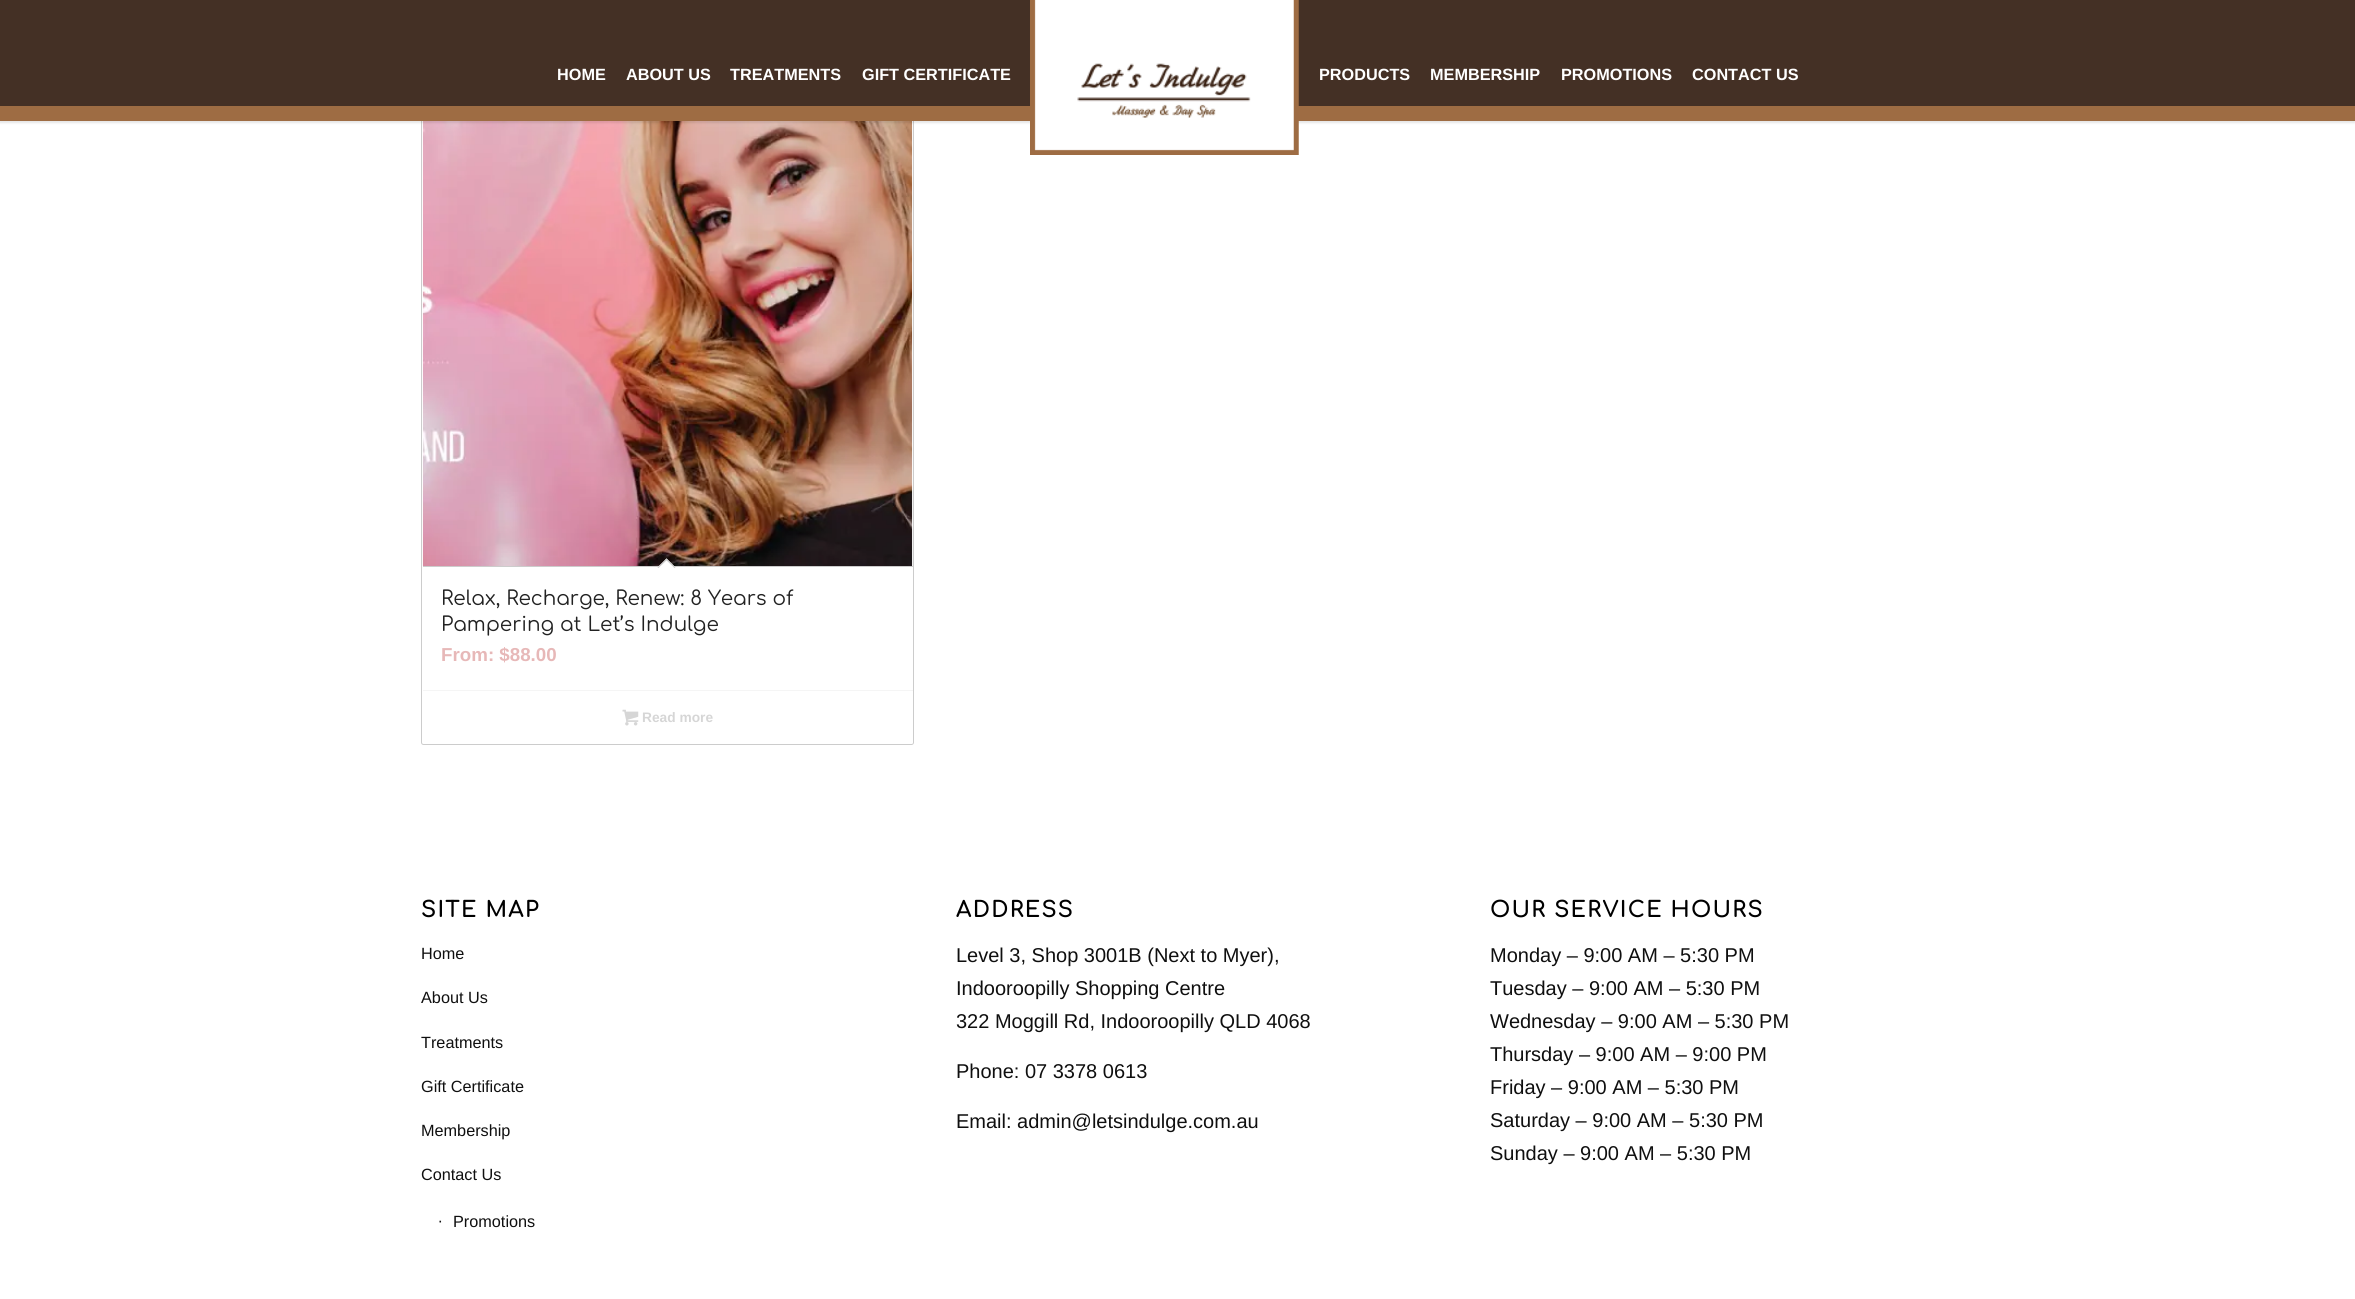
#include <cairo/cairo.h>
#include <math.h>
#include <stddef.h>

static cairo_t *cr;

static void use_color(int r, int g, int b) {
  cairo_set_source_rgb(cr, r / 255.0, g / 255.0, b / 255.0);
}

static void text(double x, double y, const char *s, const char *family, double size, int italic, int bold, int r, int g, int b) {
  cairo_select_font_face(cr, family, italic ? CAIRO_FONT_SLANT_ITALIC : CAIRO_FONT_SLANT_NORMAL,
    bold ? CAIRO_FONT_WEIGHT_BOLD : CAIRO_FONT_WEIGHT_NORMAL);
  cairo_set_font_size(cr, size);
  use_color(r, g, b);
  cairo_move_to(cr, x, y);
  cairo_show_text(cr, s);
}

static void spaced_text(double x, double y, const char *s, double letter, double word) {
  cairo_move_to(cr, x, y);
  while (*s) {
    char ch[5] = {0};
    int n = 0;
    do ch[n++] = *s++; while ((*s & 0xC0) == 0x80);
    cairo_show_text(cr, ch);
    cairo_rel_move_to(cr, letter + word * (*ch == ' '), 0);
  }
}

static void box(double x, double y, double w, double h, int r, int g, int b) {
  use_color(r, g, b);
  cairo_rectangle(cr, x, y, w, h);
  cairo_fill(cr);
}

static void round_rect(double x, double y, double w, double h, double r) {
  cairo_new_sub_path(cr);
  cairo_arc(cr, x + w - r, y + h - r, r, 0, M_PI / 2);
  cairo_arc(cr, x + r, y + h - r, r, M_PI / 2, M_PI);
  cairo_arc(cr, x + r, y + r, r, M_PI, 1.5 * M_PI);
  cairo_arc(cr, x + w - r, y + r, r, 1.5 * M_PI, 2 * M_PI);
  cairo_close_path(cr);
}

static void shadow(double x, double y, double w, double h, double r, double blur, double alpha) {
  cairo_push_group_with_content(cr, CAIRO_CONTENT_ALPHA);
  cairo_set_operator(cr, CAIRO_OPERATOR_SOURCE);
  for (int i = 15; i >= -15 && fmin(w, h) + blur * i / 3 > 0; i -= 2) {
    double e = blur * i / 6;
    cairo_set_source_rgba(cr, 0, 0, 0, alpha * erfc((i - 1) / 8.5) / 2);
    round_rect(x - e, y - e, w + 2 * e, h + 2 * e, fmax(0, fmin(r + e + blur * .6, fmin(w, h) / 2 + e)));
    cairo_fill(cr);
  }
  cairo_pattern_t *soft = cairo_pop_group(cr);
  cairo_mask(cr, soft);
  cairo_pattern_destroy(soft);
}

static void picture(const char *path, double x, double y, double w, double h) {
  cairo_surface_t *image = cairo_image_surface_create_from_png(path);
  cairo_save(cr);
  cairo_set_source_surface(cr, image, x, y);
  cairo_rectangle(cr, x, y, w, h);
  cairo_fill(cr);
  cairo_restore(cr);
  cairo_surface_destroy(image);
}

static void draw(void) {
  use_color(255, 255, 255);
  cairo_paint(cr);
  round_rect(421.5, 74.5, 492, 670, 2);
  use_color(204, 204, 204);
  cairo_set_line_width(cr, 1);
  cairo_stroke(cr);
  picture("img_02.png", 422, 121, 491, 445);
  use_color(0, 0, 0);
  shadow(-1, -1, 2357, 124, 0, 1, 0.1);
  box(0, 0, 2355, 106, 68, 48, 37);
  box(0, 106, 2355, 15, 158, 108, 67);
  picture("img_01.png", 1030, 0, 269, 155);
  box(423, 566, 490, 1, 204, 204, 204);
  use_color(255, 255, 255);
  cairo_new_path(cr);
  cairo_move_to(cr, 666.5, 558.5);
  cairo_line_to(cr, 675.5, 567.5);
  cairo_line_to(cr, 666.5, 576);
  cairo_line_to(cr, 657.5, 567.5);
  cairo_close_path(cr);
  cairo_fill(cr);
  use_color(204, 204, 204);
  cairo_new_path(cr);
  cairo_move_to(cr, 666.5, 558.5);
  cairo_line_to(cr, 675.5, 567.5);
  cairo_line_to(cr, 674.5, 568);
  cairo_line_to(cr, 665.5, 559.5);
  cairo_close_path(cr);
  cairo_fill(cr);
  cairo_new_path(cr);
  cairo_move_to(cr, 666.5, 558.5);
  cairo_line_to(cr, 667.5, 559.5);
  cairo_line_to(cr, 658.5, 568);
  cairo_line_to(cr, 657.5, 567.5);
  cairo_close_path(cr);
  cairo_fill(cr);
  cairo_set_source_rgba(cr, 0.988, 0.988, 0.988, 0.2);
  cairo_rectangle(cr, 912, 743, 1, 1);
  cairo_fill(cr);
  box(423, 690, 490, 1, 245, 245, 245);
  picture("img_03.png", 622, 709, 17, 17);
  text(557, 80, "HOME", "Liberation Sans", 16.25, 0, 1, 255, 255, 255);
  text(626, 80, "ABOUT US", "Liberation Sans", 16.25, 0, 1, 255, 255, 255);
  text(730, 80, "TREATMENTS", "Liberation Sans", 16.25, 0, 1, 255, 255, 255);
  text(862, 80, "GIFT CERTIFICATE", "Liberation Sans", 16.25, 0, 1, 255, 255, 255);
  text(1319, 80, "PRODUCTS", "Liberation Sans", 16.25, 0, 1, 255, 255, 255);
  text(1430, 80, "MEMBERSHIP", "Liberation Sans", 16.25, 0, 1, 255, 255, 255);
  text(1561, 80, "PROMOTIONS", "Liberation Sans", 16.25, 0, 1, 255, 255, 255);
  text(1692, 80, "CONTACT US", "Liberation Sans", 16.25, 0, 1, 255, 255, 255);
  text(441, 605, "Relax, Recharge, Renew: 8 Years of", "Comfortaa", 20, 0, 0, 34, 34, 34);
  text(441, 631, "Pampering at Let’s Indulge", "Comfortaa", 20, 0, 0, 34, 34, 34);
  text(441, 661, "From: $88.00", "Liberation Sans", 18.75, 0, 1, 231, 184, 184);
  text(642, 722, "Read more", "Liberation Sans", 13.75, 0, 1, 214, 214, 214);
  cairo_select_font_face(cr, "Comfortaa", CAIRO_FONT_SLANT_NORMAL, CAIRO_FONT_WEIGHT_BOLD);
  cairo_set_font_size(cr, 22);
  use_color(0, 0, 0);
  spaced_text(421, 917, "SITE MAP", 1.25, 0);
  text(421, 959, "Home", "Liberation Sans", 16.25, 0, 0, 15, 15, 15);
  text(421, 1003, "About Us", "Liberation Sans", 16.25, 0, 0, 15, 15, 15);
  text(421, 1048, "Treatments", "Liberation Sans", 16.25, 0, 0, 15, 15, 15);
  text(421, 1092, "Gift Certificate", "Liberation Sans", 16.25, 0, 0, 15, 15, 15);
  text(421, 1136, "Membership", "Liberation Sans", 16.25, 0, 0, 15, 15, 15);
  text(421, 1180, "Contact Us", "Liberation Sans", 16.25, 0, 0, 15, 15, 15);
  text(438, 1226, "∙", "Liberation Sans", 16.25, 0, 0, 15, 15, 15);
  text(453, 1227, "Promotions", "Liberation Sans", 16.25, 0, 0, 15, 15, 15);
  cairo_select_font_face(cr, "Comfortaa", CAIRO_FONT_SLANT_NORMAL, CAIRO_FONT_WEIGHT_BOLD);
  cairo_set_font_size(cr, 22);
  use_color(0, 0, 0);
  spaced_text(956, 917, "ADDRESS", 1.25, 0);
  text(956, 962, "Level 3, Shop 3001B (Next to Myer),", "Liberation Sans", 20, 0, 0, 15, 15, 15);
  text(956, 995, "Indooroopilly Shopping Centre", "Liberation Sans", 20, 0, 0, 15, 15, 15);
  text(956, 1028, "322 Moggill Rd, Indooroopilly QLD 4068", "Liberation Sans", 20, 0, 0, 15, 15, 15);
  text(956, 1078, "Phone: 07 3378 0613", "Liberation Sans", 20, 0, 0, 15, 15, 15);
  text(956, 1128, "Email: admin@letsindulge.com.au", "Liberation Sans", 20, 0, 0, 15, 15, 15);
  cairo_select_font_face(cr, "Comfortaa", CAIRO_FONT_SLANT_NORMAL, CAIRO_FONT_WEIGHT_BOLD);
  cairo_set_font_size(cr, 22);
  use_color(0, 0, 0);
  spaced_text(1490, 917, "OUR SERVICE HOURS", 1.25, 0);
  text(1490, 962, "Monday – 9:00 AM – 5:30 PM", "Liberation Sans", 20, 0, 0, 15, 15, 15);
  text(1490, 995, "Tuesday – 9:00 AM – 5:30 PM", "Liberation Sans", 20, 0, 0, 15, 15, 15);
  text(1490, 1028, "Wednesday – 9:00 AM – 5:30 PM", "Liberation Sans", 20, 0, 0, 15, 15, 15);
  text(1490, 1061, "Thursday – 9:00 AM – 9:00 PM", "Liberation Sans", 20, 0, 0, 15, 15, 15);
  text(1490, 1094, "Friday – 9:00 AM – 5:30 PM", "Liberation Sans", 20, 0, 0, 15, 15, 15);
  text(1490, 1127, "Saturday – 9:00 AM – 5:30 PM", "Liberation Sans", 20, 0, 0, 15, 15, 15);
  text(1490, 1160, "Sunday – 9:00 AM – 5:30 PM", "Liberation Sans", 20, 0, 0, 15, 15, 15);
}

int main(void) {
  cairo_surface_t *surface = cairo_image_surface_create(CAIRO_FORMAT_RGB24, 2355, 1299);
  cr = cairo_create(surface);
  cairo_font_options_t *options = cairo_font_options_create();
  cairo_font_options_set_hint_metrics(options, CAIRO_HINT_METRICS_OFF);
  cairo_font_options_set_hint_style(options, CAIRO_HINT_STYLE_NONE);
  cairo_set_font_options(cr, options);
  cairo_set_miter_limit(cr, 4);
  draw();
  cairo_surface_write_to_png(surface, "out.png");
  cairo_font_options_destroy(options);
  cairo_destroy(cr);
  cairo_surface_destroy(surface);
  return 0;
}
